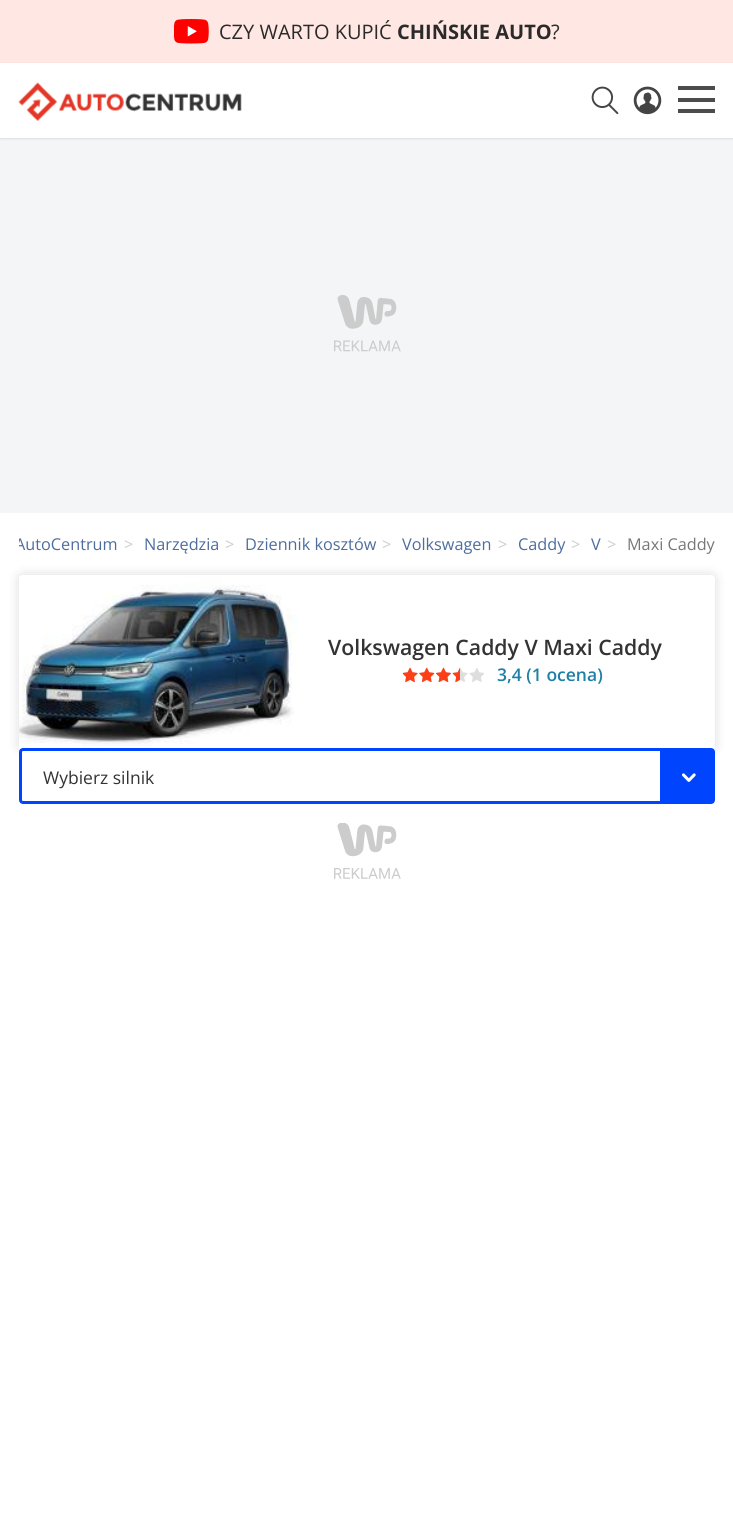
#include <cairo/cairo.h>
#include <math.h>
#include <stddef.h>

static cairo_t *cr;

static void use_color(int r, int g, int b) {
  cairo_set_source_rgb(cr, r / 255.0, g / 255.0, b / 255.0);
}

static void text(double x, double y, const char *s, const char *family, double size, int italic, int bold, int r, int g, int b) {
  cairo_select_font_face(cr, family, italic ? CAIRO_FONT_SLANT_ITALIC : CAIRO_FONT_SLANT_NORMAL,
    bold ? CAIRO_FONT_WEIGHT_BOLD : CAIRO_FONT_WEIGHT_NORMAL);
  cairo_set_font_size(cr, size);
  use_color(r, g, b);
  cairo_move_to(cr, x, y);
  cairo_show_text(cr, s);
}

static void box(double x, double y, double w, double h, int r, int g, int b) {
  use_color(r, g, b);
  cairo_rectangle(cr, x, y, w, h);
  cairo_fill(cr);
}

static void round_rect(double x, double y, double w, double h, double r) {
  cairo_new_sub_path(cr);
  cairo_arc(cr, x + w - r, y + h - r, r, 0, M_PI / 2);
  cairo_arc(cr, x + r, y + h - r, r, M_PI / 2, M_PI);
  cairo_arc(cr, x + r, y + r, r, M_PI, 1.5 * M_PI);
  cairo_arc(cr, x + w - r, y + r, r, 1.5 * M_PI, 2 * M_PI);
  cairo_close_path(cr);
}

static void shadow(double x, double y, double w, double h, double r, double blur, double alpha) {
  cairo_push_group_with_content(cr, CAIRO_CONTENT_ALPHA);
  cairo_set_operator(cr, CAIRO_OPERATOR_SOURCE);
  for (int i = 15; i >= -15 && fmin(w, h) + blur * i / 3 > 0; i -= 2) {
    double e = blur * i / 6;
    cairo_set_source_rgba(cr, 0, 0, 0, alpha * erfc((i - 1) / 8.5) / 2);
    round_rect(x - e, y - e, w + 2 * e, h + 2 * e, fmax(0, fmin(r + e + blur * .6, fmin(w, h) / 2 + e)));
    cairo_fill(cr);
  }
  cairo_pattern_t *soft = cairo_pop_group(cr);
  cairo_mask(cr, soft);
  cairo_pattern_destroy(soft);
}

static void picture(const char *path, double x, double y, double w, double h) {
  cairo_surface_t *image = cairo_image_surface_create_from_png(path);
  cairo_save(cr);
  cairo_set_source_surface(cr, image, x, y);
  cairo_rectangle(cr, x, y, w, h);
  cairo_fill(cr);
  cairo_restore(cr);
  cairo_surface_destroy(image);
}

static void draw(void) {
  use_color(255, 255, 255);
  cairo_paint(cr);
  box(0, 0, 733, 63, 255, 232, 227);
  picture("img_01.png", 174, 19, 35, 25);
  box(0, 138, 733, 375, 243, 245, 246);
  use_color(0, 0, 0);
  shadow(0, 64, 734, 75, 0, 1, 0.1);
  box(0, 63, 733, 75, 255, 255, 255);
  picture("img_02.png", 18, 82, 224, 39);
  picture("img_03.png", 591, 86, 28, 29);
  picture("img_04.png", 633, 86, 29, 29);
  box(678, 86, 37, 4, 76, 76, 76);
  box(678, 98, 37, 4, 76, 76, 76);
  box(678, 109, 37, 4, 76, 76, 76);
  picture("img_05.png", 334, 295, 67, 57);
  cairo_save(cr);
  cairo_set_fill_rule(cr, CAIRO_FILL_RULE_EVEN_ODD);
  cairo_new_path(cr);
  cairo_move_to(cr, 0, 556);
  cairo_line_to(cr, 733, 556);
  cairo_line_to(cr, 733, 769);
  cairo_line_to(cr, 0, 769);
  cairo_close_path(cr);
  cairo_move_to(cr, 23, 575);
  cairo_line_to(cr, 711, 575);
  cairo_curve_to(cr, 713, 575, 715, 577, 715, 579);
  cairo_line_to(cr, 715, 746);
  cairo_curve_to(cr, 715, 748, 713, 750, 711, 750);
  cairo_line_to(cr, 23, 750);
  cairo_curve_to(cr, 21, 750, 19, 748, 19, 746);
  cairo_line_to(cr, 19, 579);
  cairo_curve_to(cr, 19, 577, 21, 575, 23, 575);
  cairo_close_path(cr);
  cairo_clip(cr);
  use_color(0, 0, 0);
  shadow(19, 575, 696, 175, 4, 6, 0.14);
  cairo_restore(cr);
  picture("img_06.png", 19, 576, 278, 173);
  picture("img_07.png", 402, 667, 83, 15);
  picture("img_08.png", 403, 667, 57, 16);
  use_color(255, 255, 255);
  round_rect(20.5, 749.5, 693, 53, 2.5);
  cairo_fill_preserve(cr);
  use_color(0, 68, 254);
  cairo_set_line_width(cr, 3);
  cairo_stroke(cr);
  box(660, 749, 54, 54, 0, 68, 254);
  picture("img_09.png", 682, 773, 14, 9);
  picture("img_10.png", 334, 823, 67, 56);
  text(219, 39, "CZY WARTO KUPIĆ", "Open Sans", 20, 0, 0, 42, 42, 42);
  text(397, 39, "CHIŃSKIE AUTO", "Open Sans", 20, 0, 1, 42, 42, 42);
  text(551, 39, "?", "Open Sans", 20, 0, 0, 42, 42, 42);
  cairo_save(cr);
  round_rect(19, 525, 696, 58, 5);
  cairo_clip(cr);
  text(15, 550, "AutoCentrum", "Open Sans", 16.25, 0, 0, 77, 109, 158);
  cairo_restore(cr);
  text(124, 550, ">", "Open Sans", 16.25, 0, 0, 204, 204, 204);
  text(144, 550, "Narzędzia", "Open Sans", 16.25, 0, 0, 77, 109, 158);
  text(225, 550, ">", "Open Sans", 16.25, 0, 0, 204, 204, 204);
  text(245, 550, "Dziennik kosztów", "Open Sans", 16.25, 0, 0, 77, 109, 158);
  text(382, 550, ">", "Open Sans", 16.25, 0, 0, 204, 204, 204);
  text(402, 550, "Volkswagen", "Open Sans", 16.25, 0, 0, 77, 109, 158);
  text(498, 550, ">", "Open Sans", 16.25, 0, 0, 204, 204, 204);
  text(518, 550, "Caddy", "Open Sans", 16.25, 0, 0, 77, 109, 158);
  text(571, 550, ">", "Open Sans", 16.25, 0, 0, 204, 204, 204);
  text(591, 550, "V", "Open Sans", 16.25, 0, 0, 77, 109, 158);
  text(607, 550, ">", "Open Sans", 16.25, 0, 0, 204, 204, 204);
  text(627, 550, "Maxi Caddy", "Open Sans", 16.25, 0, 0, 119, 119, 119);
  text(328, 655, "Volkswagen Caddy V Maxi Caddy", "Open Sans SemiBold", 21.25, 0, 0, 51, 51, 51);
  text(497, 681, "3,4 (1 ocena)", "Open Sans SemiBold", 17.5, 0, 0, 30, 128, 164);
  text(43, 784, "Wybierz silnik", "Open Sans", 17.5, 0, 0, 51, 51, 51);
}

int main(void) {
  cairo_surface_t *surface = cairo_image_surface_create(CAIRO_FORMAT_RGB24, 733, 1524);
  cr = cairo_create(surface);
  cairo_font_options_t *options = cairo_font_options_create();
  cairo_font_options_set_hint_metrics(options, CAIRO_HINT_METRICS_OFF);
  cairo_font_options_set_hint_style(options, CAIRO_HINT_STYLE_NONE);
  cairo_set_font_options(cr, options);
  cairo_set_miter_limit(cr, 4);
  draw();
  cairo_surface_write_to_png(surface, "out.png");
  cairo_font_options_destroy(options);
  cairo_destroy(cr);
  cairo_surface_destroy(surface);
  return 0;
}
